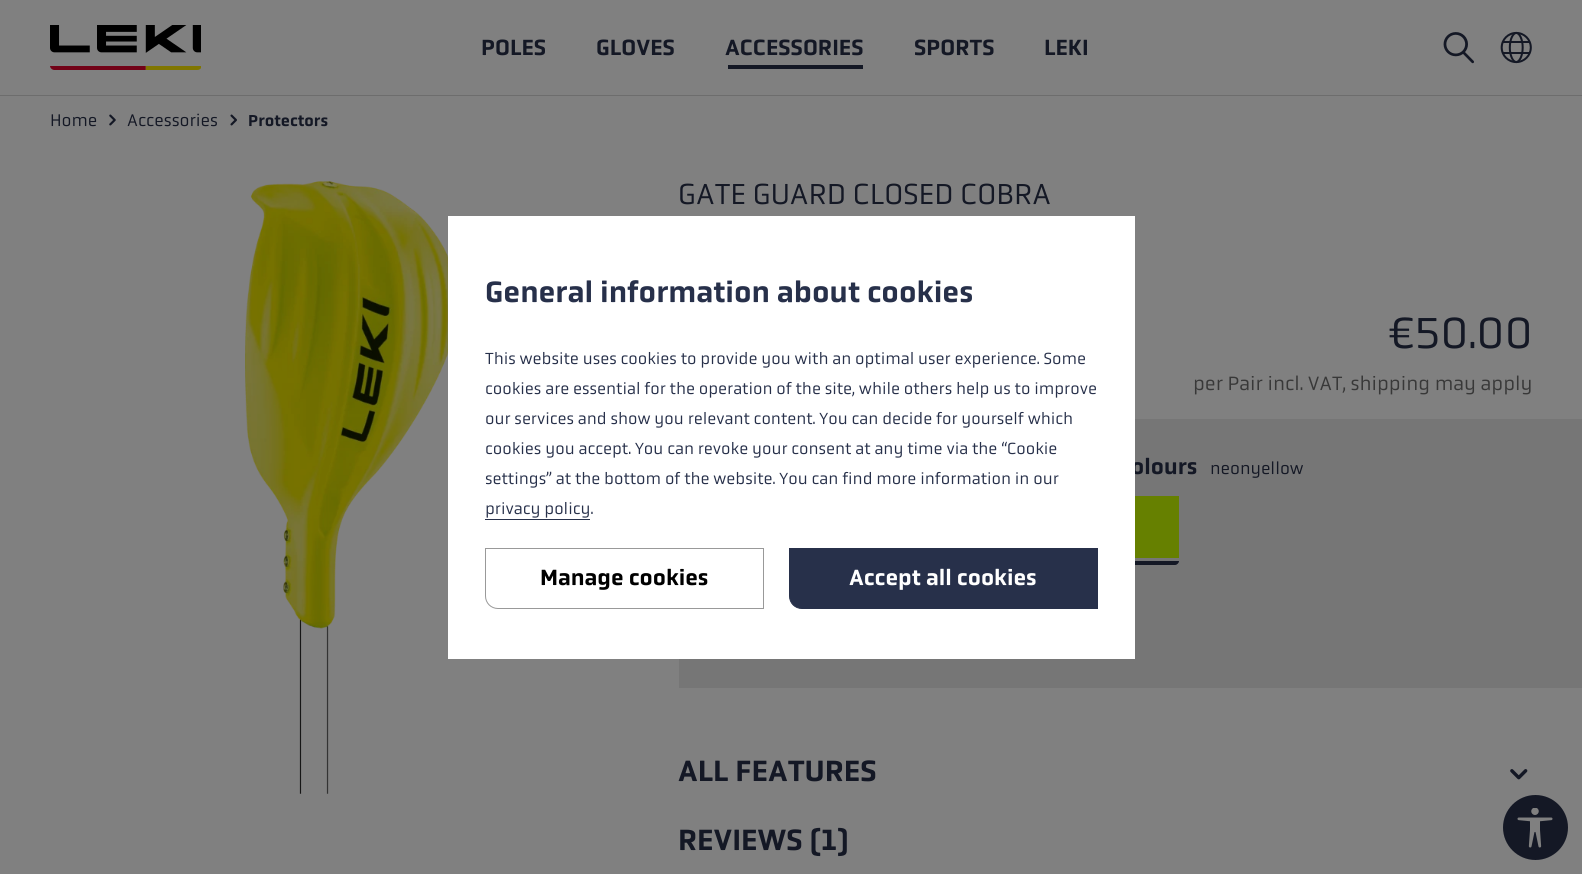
#include <cairo/cairo.h>
#include <math.h>
#include <stddef.h>

static cairo_t *cr;

static void use_color(int r, int g, int b) {
  cairo_set_source_rgb(cr, r / 255.0, g / 255.0, b / 255.0);
}

static void text(double x, double y, const char *s, const char *family, double size, int italic, int bold, int r, int g, int b) {
  cairo_select_font_face(cr, family, italic ? CAIRO_FONT_SLANT_ITALIC : CAIRO_FONT_SLANT_NORMAL,
    bold ? CAIRO_FONT_WEIGHT_BOLD : CAIRO_FONT_WEIGHT_NORMAL);
  cairo_set_font_size(cr, size);
  use_color(r, g, b);
  cairo_move_to(cr, x, y);
  cairo_show_text(cr, s);
}

static void box(double x, double y, double w, double h, int r, int g, int b) {
  use_color(r, g, b);
  cairo_rectangle(cr, x, y, w, h);
  cairo_fill(cr);
}

static void picture(const char *path, double x, double y, double w, double h) {
  cairo_surface_t *image = cairo_image_surface_create_from_png(path);
  cairo_save(cr);
  cairo_set_source_surface(cr, image, x, y);
  cairo_rectangle(cr, x, y, w, h);
  cairo_fill(cr);
  cairo_restore(cr);
  cairo_surface_destroy(image);
}

static void draw(void) {
  use_color(128, 128, 128);
  cairo_paint(cr);
  box(0, 95, 1582, 1, 109, 109, 109);
  picture("img_01.png", 50, 25, 151, 45);
  box(728, 65, 135, 4, 20, 24, 37);
  picture("img_02.png", 1443, 32, 31, 32);
  picture("img_03.png", 1500, 31, 32, 33);
  picture("img_04.png", 109, 114, 7, 12);
  picture("img_05.png", 230, 114, 7, 12);
  picture("img_06.png", 245, 181, 203, 613);
  box(1135, 419, 447, 214, 118, 118, 118);
  box(1135, 496, 44, 62, 102, 128, 0);
  use_color(20, 24, 37);
  cairo_new_path(cr);
  cairo_move_to(cr, 1118, 561);
  cairo_line_to(cr, 1179, 561);
  cairo_curve_to(cr, 1179, 563, 1177, 565, 1175, 565);
  cairo_line_to(cr, 1122, 565);
  cairo_curve_to(cr, 1120, 565, 1118, 563, 1118, 561);
  cairo_close_path(cr);
  cairo_fill(cr);
  box(679, 633, 903, 55, 118, 118, 118);
  picture("img_07.png", 1510, 769, 18, 11);
  use_color(20, 24, 37);
  cairo_arc(cr, 1535.5, 827.5, 32.5, 0, 2 * M_PI);
  cairo_fill(cr);
  picture("img_08.png", 1517, 808, 36, 40);
  text(481, 55, "POLES", "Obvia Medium", 22.5, 0, 0, 20, 24, 37);
  text(596, 55, "GLOVES", "Obvia Medium", 22.5, 0, 0, 20, 24, 37);
  text(725, 55, "ACCESSORIES", "Obvia Medium", 22.5, 0, 0, 20, 24, 37);
  text(914, 55, "SPORTS", "Obvia Medium", 22.5, 0, 0, 20, 24, 37);
  text(1044, 55, "LEKI", "Obvia Medium", 22.5, 0, 0, 20, 24, 37);
  text(50, 126, "Home", "Obvia", 17.5, 0, 0, 20, 24, 37);
  text(127, 126, "Accessories", "Obvia", 17.5, 0, 0, 20, 24, 37);
  text(248, 126, "Protectors", "Obvia Medium", 16.25, 0, 0, 20, 24, 37);
  text(678, 204, "GATE GUARD CLOSED COBRA", "Obvia", 30, 0, 0, 20, 24, 37);
  text(1387, 348, "€50.00", "Obvia", 45, 0, 0, 20, 24, 37);
  text(1193, 390, "per Pair incl. VAT, shipping may apply", "Obvia", 20, 0, 0, 56, 56, 56);
  text(1131, 474, "olours", "Obvia Medium", 22.5, 0, 0, 20, 24, 37);
  text(1210, 474, "neonyellow", "Obvia", 17.5, 0, 0, 20, 24, 37);
  text(678, 781, "ALL FEATURES", "Obvia Medium", 30, 0, 0, 20, 24, 37);
  text(678, 850, "REVIEWS (1)", "Obvia Medium", 30, 0, 0, 20, 24, 37);
  box(448, 216, 687, 443, 255, 255, 255);
  text(485, 302, "General information about cookies", "Obvia Medium", 30, 0, 0, 39, 48, 74);
  text(485, 364, "This website uses cookies to provide you with an optimal user experience. Some", "Obvia", 16.65, 0, 0, 39, 48, 74);
  text(485, 394, "cookies are essential for the operation of the site, while others help us to improve", "Obvia", 16.65, 0, 0, 39, 48, 74);
  text(485, 424, "our services and show you relevant content. You can decide for yourself which", "Obvia", 16.65, 0, 0, 39, 48, 74);
  text(485, 454, "cookies you accept. You can revoke your consent at any time via the “Cookie", "Obvia", 16.65, 0, 0, 39, 48, 74);
  text(485, 484, "settings” at the bottom of the website. You can find more information in our", "Obvia", 16.65, 0, 0, 39, 48, 74);
  text(485, 514, "privacy policy.", "Obvia", 16.65, 0, 0, 39, 48, 74);
  box(485, 519, 105, 1, 39, 48, 74);
  cairo_new_path(cr);
  cairo_move_to(cr, 485.5, 548.5);
  cairo_line_to(cr, 763.5, 548.5);
  cairo_line_to(cr, 763.5, 608.5);
  cairo_line_to(cr, 498, 608.5);
  cairo_curve_to(cr, 491, 608.5, 485.5, 603, 485.5, 596);
  cairo_close_path(cr);
  use_color(153, 153, 153);
  cairo_set_line_width(cr, 1);
  cairo_stroke(cr);
  text(540, 585, "Manage cookies", "Obvia Medium", 22.5, 0, 0, 0, 0, 0);
  use_color(39, 48, 74);
  cairo_new_path(cr);
  cairo_move_to(cr, 789.5, 548.5);
  cairo_line_to(cr, 1097.5, 548.5);
  cairo_line_to(cr, 1097.5, 608.5);
  cairo_line_to(cr, 802, 608.5);
  cairo_curve_to(cr, 795, 608.5, 789.5, 603, 789.5, 596);
  cairo_close_path(cr);
  cairo_fill_preserve(cr);
  cairo_stroke(cr);
  text(849, 585, "Accept all cookies", "Obvia Medium", 22.5, 0, 0, 255, 255, 255);
}

int main(void) {
  cairo_surface_t *surface = cairo_image_surface_create(CAIRO_FORMAT_RGB24, 1582, 874);
  cr = cairo_create(surface);
  cairo_font_options_t *options = cairo_font_options_create();
  cairo_font_options_set_hint_metrics(options, CAIRO_HINT_METRICS_OFF);
  cairo_font_options_set_hint_style(options, CAIRO_HINT_STYLE_NONE);
  cairo_set_font_options(cr, options);
  cairo_set_miter_limit(cr, 4);
  draw();
  cairo_surface_write_to_png(surface, "out.png");
  cairo_font_options_destroy(options);
  cairo_destroy(cr);
  cairo_surface_destroy(surface);
  return 0;
}
